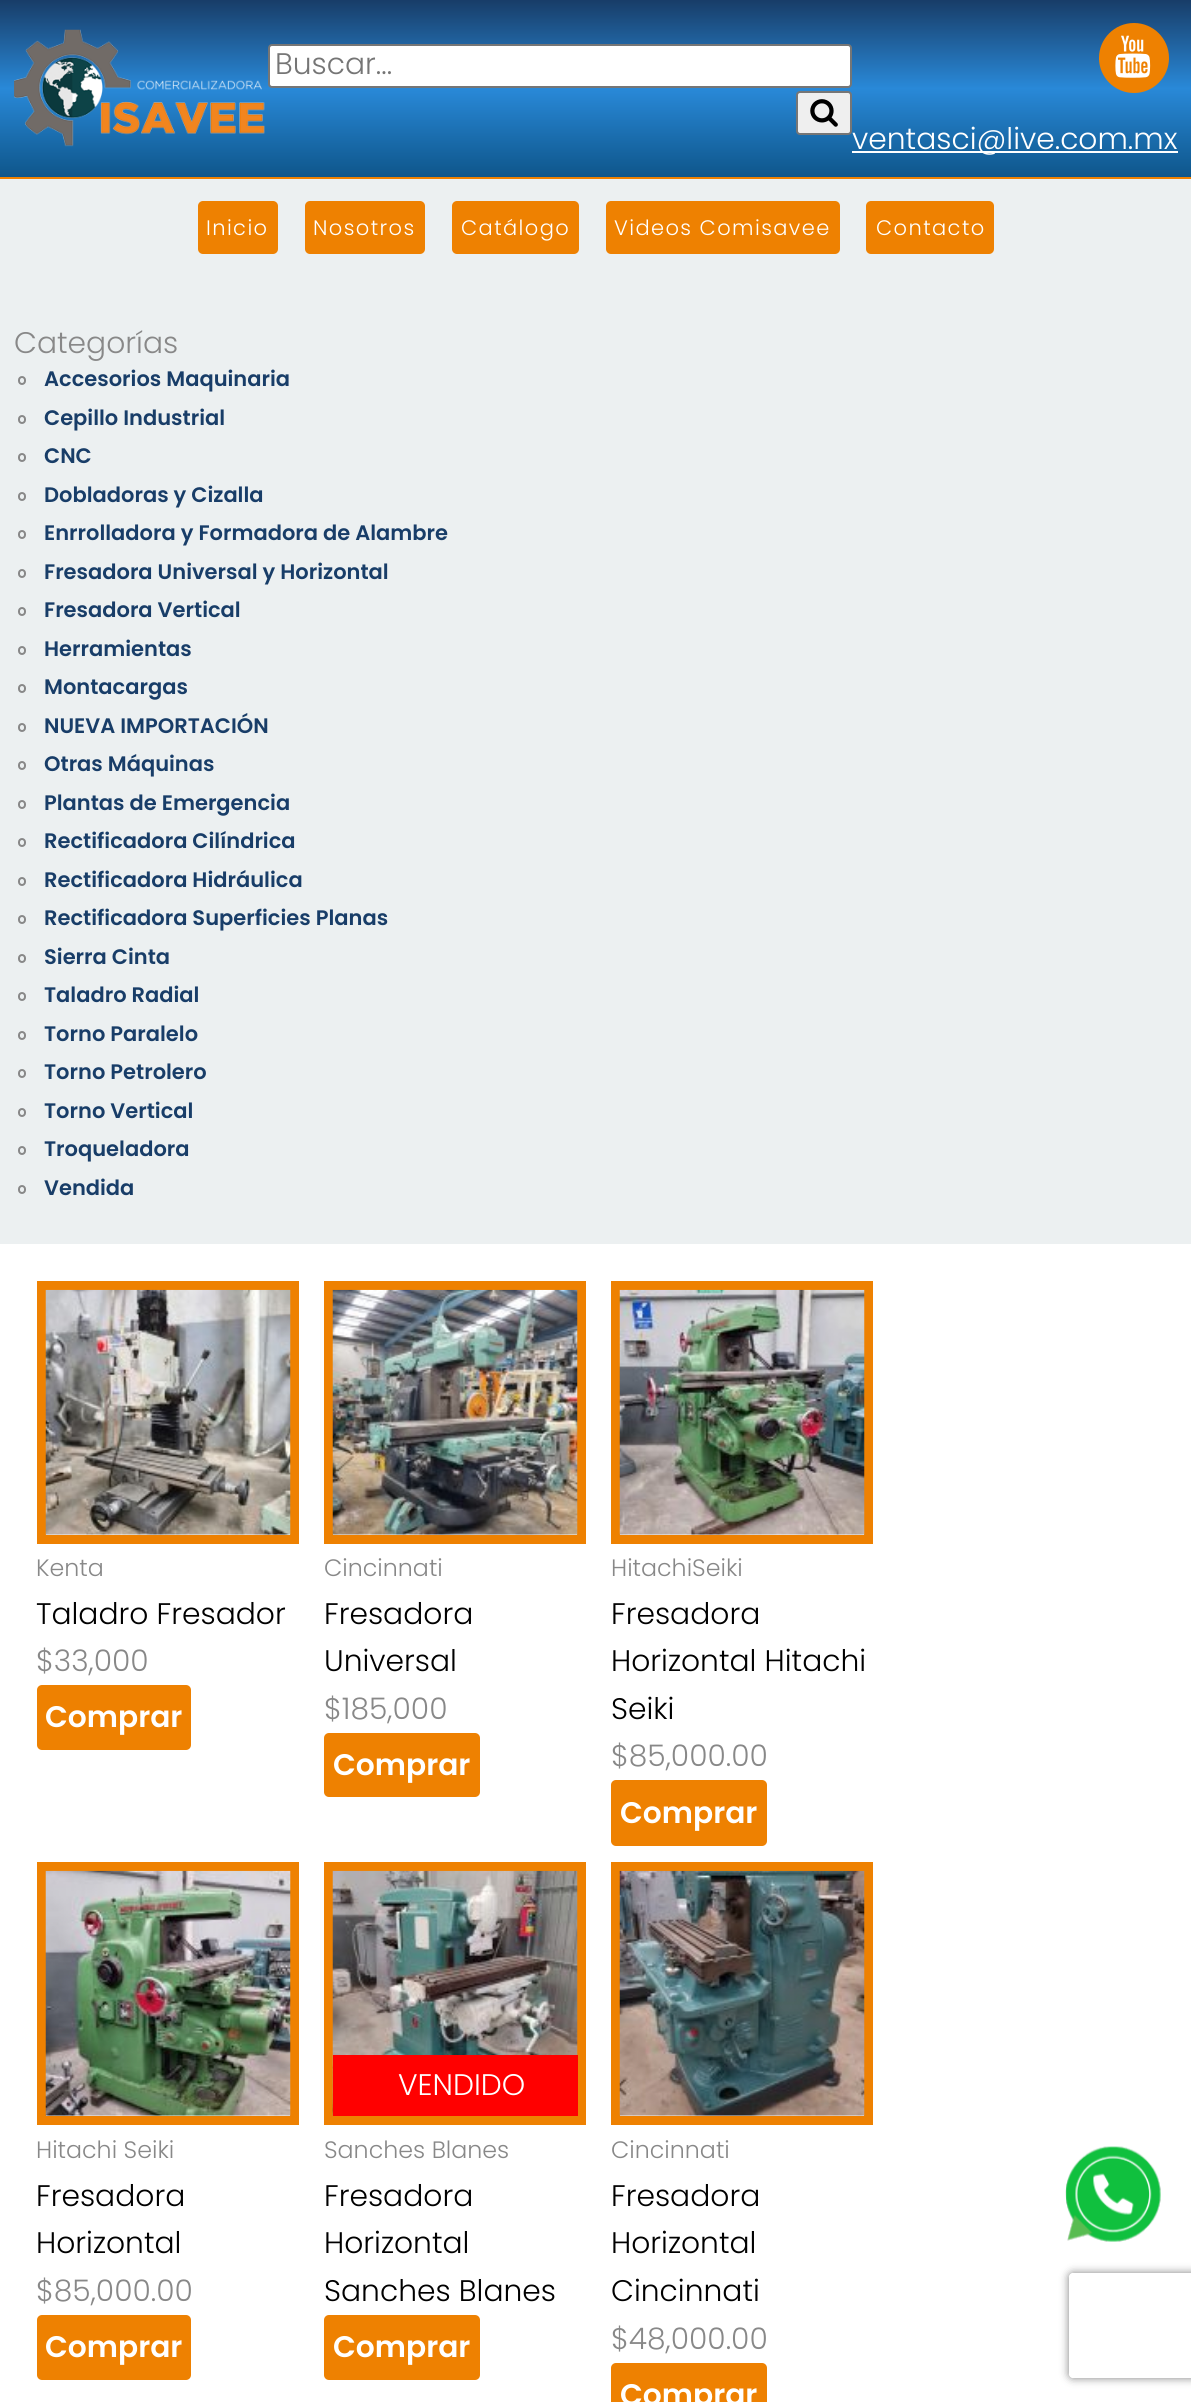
#include <cairo/cairo.h>
#include <math.h>
#include <stddef.h>

static cairo_t *cr;

static void use_color(int r, int g, int b) {
  cairo_set_source_rgb(cr, r / 255.0, g / 255.0, b / 255.0);
}

static void text(double x, double y, const char *s, const char *family, double size, int italic, int bold, int r, int g, int b) {
  cairo_select_font_face(cr, family, italic ? CAIRO_FONT_SLANT_ITALIC : CAIRO_FONT_SLANT_NORMAL,
    bold ? CAIRO_FONT_WEIGHT_BOLD : CAIRO_FONT_WEIGHT_NORMAL);
  cairo_set_font_size(cr, size);
  use_color(r, g, b);
  cairo_move_to(cr, x, y);
  cairo_show_text(cr, s);
}

static void spaced_text(double x, double y, const char *s, double letter, double word) {
  cairo_move_to(cr, x, y);
  while (*s) {
    char ch[5] = {0};
    int n = 0;
    do ch[n++] = *s++; while ((*s & 0xC0) == 0x80);
    cairo_show_text(cr, ch);
    cairo_rel_move_to(cr, letter + word * (*ch == ' '), 0);
  }
}

static void box(double x, double y, double w, double h, int r, int g, int b) {
  use_color(r, g, b);
  cairo_rectangle(cr, x, y, w, h);
  cairo_fill(cr);
}

static void round_rect(double x, double y, double w, double h, double r) {
  cairo_new_sub_path(cr);
  cairo_arc(cr, x + w - r, y + h - r, r, 0, M_PI / 2);
  cairo_arc(cr, x + r, y + h - r, r, M_PI / 2, M_PI);
  cairo_arc(cr, x + r, y + r, r, M_PI, 1.5 * M_PI);
  cairo_arc(cr, x + w - r, y + r, r, 1.5 * M_PI, 2 * M_PI);
  cairo_close_path(cr);
}

static void shadow(double x, double y, double w, double h, double r, double blur, double alpha) {
  cairo_push_group_with_content(cr, CAIRO_CONTENT_ALPHA);
  cairo_set_operator(cr, CAIRO_OPERATOR_SOURCE);
  for (int i = 15; i >= -15 && fmin(w, h) + blur * i / 3 > 0; i -= 2) {
    double e = blur * i / 6;
    cairo_set_source_rgba(cr, 0, 0, 0, alpha * erfc((i - 1) / 8.5) / 2);
    round_rect(x - e, y - e, w + 2 * e, h + 2 * e, fmax(0, fmin(r + e + blur * .6, fmin(w, h) / 2 + e)));
    cairo_fill(cr);
  }
  cairo_pattern_t *soft = cairo_pop_group(cr);
  cairo_mask(cr, soft);
  cairo_pattern_destroy(soft);
}

static void picture(const char *path, double x, double y, double w, double h) {
  cairo_surface_t *image = cairo_image_surface_create_from_png(path);
  cairo_save(cr);
  cairo_set_source_surface(cr, image, x, y);
  cairo_rectangle(cr, x, y, w, h);
  cairo_fill(cr);
  cairo_restore(cr);
  cairo_surface_destroy(image);
}

static void draw(void) {
  cairo_pattern_t *gradient;
  use_color(255, 255, 255);
  cairo_paint(cr);
  gradient = cairo_pattern_create_linear(596, 0, 596, 177);
  cairo_pattern_add_color_stop_rgba(gradient, 0, 0.094, 0.239, 0.408, 1);
  cairo_pattern_add_color_stop_rgba(gradient, 0.5, 0.161, 0.537, 0.847, 1);
  cairo_pattern_add_color_stop_rgba(gradient, 1, 0.055, 0.337, 0.545, 1);
  cairo_set_source(cr, gradient);
  cairo_pattern_destroy(gradient);
  cairo_rectangle(cr, 0, 0, 1191, 177);
  cairo_fill(cr);
  box(0, 177, 1191, 2, 238, 129, 1);
  picture("img_01.png", 14, 29, 251, 118);
  use_color(255, 255, 255);
  round_rect(269, 45, 582, 42, 3);
  cairo_fill_preserve(cr);
  use_color(118, 118, 118);
  cairo_stroke(cr);
  use_color(239, 239, 239);
  round_rect(797, 92, 54, 42, 3);
  cairo_fill_preserve(cr);
  use_color(118, 118, 118);
  cairo_stroke(cr);
  picture("img_02.png", 810, 99, 28, 28);
  use_color(238, 129, 1);
  cairo_arc(cr, 1134, 58, 35, 0, 2 * M_PI);
  cairo_fill(cr);
  box(1099, 58, 70, 2, 238, 129, 1);
  picture("img_03.png", 1115, 35, 36, 43);
  box(852, 151, 326, 2, 255, 255, 255);
  box(0, 179, 1191, 1065, 236, 240, 241);
  use_color(238, 129, 1);
  round_rect(198, 201, 80, 53, 5);
  cairo_fill(cr);
  round_rect(305, 201, 120, 53, 5);
  cairo_fill(cr);
  round_rect(452, 201, 127, 53, 5);
  cairo_fill(cr);
  round_rect(606, 201, 234, 53, 5);
  cairo_fill(cr);
  round_rect(866, 201, 128, 53, 5);
  cairo_fill(cr);
  round_rect(19, 377, 6, 7, 3);
  use_color(136, 136, 136);
  cairo_stroke(cr);
  round_rect(19, 416, 6, 7, 3);
  cairo_stroke(cr);
  round_rect(19, 454, 6, 7, 3);
  cairo_stroke(cr);
  round_rect(19, 493, 6, 7, 3);
  cairo_stroke(cr);
  round_rect(19, 531, 6, 7, 3);
  cairo_stroke(cr);
  round_rect(19, 570, 6, 7, 3);
  cairo_stroke(cr);
  round_rect(19, 608, 6, 7, 3);
  cairo_stroke(cr);
  round_rect(19, 647, 6, 7, 3);
  cairo_stroke(cr);
  round_rect(19, 685, 6, 7, 3);
  cairo_stroke(cr);
  round_rect(19, 724, 6, 7, 3);
  cairo_stroke(cr);
  round_rect(19, 762, 6, 7, 3);
  cairo_stroke(cr);
  round_rect(19, 801, 6, 7, 3);
  cairo_stroke(cr);
  round_rect(19, 839, 6, 7, 3);
  cairo_stroke(cr);
  round_rect(19, 878, 6, 7, 3);
  cairo_stroke(cr);
  round_rect(19, 916, 6, 7, 3);
  cairo_stroke(cr);
  round_rect(19, 955, 6, 7, 3);
  cairo_stroke(cr);
  round_rect(19, 993, 6, 7, 3);
  cairo_stroke(cr);
  round_rect(19, 1032, 6, 7, 3);
  cairo_stroke(cr);
  round_rect(19, 1070, 6, 7, 3);
  cairo_stroke(cr);
  round_rect(19, 1109, 6, 7, 3);
  cairo_stroke(cr);
  round_rect(19, 1147, 6, 7, 3);
  cairo_stroke(cr);
  round_rect(19, 1186, 6, 7, 3);
  cairo_stroke(cr);
  cairo_rectangle(cr, 41.5, 1285.5, 253, 254);
  use_color(238, 129, 1);
  cairo_set_line_width(cr, 9);
  cairo_stroke(cr);
  picture("img_04.png", 45, 1289, 246, 246);
  round_rect(37, 1685, 154, 65, 5);
  cairo_fill(cr);
  cairo_rectangle(cr, 328.5, 1285.5, 253, 254);
  cairo_stroke(cr);
  picture("img_05.png", 332, 1289, 246, 246);
  round_rect(324, 1733, 156, 64, 5);
  cairo_fill(cr);
  cairo_rectangle(cr, 615.5, 1285.5, 253, 254);
  cairo_stroke(cr);
  picture("img_06.png", 619, 1289, 246, 246);
  round_rect(611, 1780, 156, 66, 5);
  cairo_fill(cr);
  cairo_rectangle(cr, 41.5, 1866.5, 253, 254);
  cairo_stroke(cr);
  picture("img_07.png", 45, 1870, 246, 246);
  round_rect(37, 2315, 154, 65, 5);
  cairo_fill(cr);
  cairo_rectangle(cr, 328.5, 1866.5, 253, 254);
  cairo_stroke(cr);
  picture("img_08.png", 332, 1870, 246, 246);
  box(333, 2055, 245, 61, 255, 0, 0);
  use_color(238, 129, 1);
  round_rect(324, 2315, 156, 65, 5);
  cairo_fill(cr);
  cairo_rectangle(cr, 615.5, 1866.5, 253, 254);
  cairo_stroke(cr);
  picture("img_09.png", 619, 1870, 246, 246);
  round_rect(611, 2363, 156, 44, 5);
  cairo_fill(cr);
  picture("img_10.png", 1065, 2146, 96, 96);
  cairo_save(cr);
  cairo_set_fill_rule(cr, CAIRO_FILL_RULE_EVEN_ODD);
  cairo_new_path(cr);
  cairo_move_to(cr, 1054, 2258);
  cairo_line_to(cr, 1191, 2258);
  cairo_line_to(cr, 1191, 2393);
  cairo_line_to(cr, 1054, 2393);
  cairo_close_path(cr);
  cairo_move_to(cr, 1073, 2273);
  cairo_line_to(cr, 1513, 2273);
  cairo_curve_to(cr, 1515, 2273, 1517, 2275, 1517, 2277);
  cairo_line_to(cr, 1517, 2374);
  cairo_curve_to(cr, 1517, 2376, 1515, 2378, 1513, 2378);
  cairo_line_to(cr, 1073, 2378);
  cairo_curve_to(cr, 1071, 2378, 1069, 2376, 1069, 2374);
  cairo_line_to(cr, 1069, 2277);
  cairo_curve_to(cr, 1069, 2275, 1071, 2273, 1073, 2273);
  cairo_close_path(cr);
  cairo_clip(cr);
  use_color(128, 128, 128);
  shadow(1069, 2273, 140, 105, 4, 4.5, 1);
  cairo_restore(cr);
  text(275, 74, "Buscar...", "Poppins Light", 29.75, 0, 0, 117, 117, 117);
  text(852, 149, "ventasci@live.com.mx", "Poppins Light", 29.75, 0, 0, 255, 255, 255);
  cairo_set_font_size(cr, 21);
  spaced_text(206, 235, "Inicio", 1.4, 0);
  spaced_text(313, 235, "Nosotros", 1.4, 0);
  spaced_text(461, 235, "Catálogo", 1.4, 0);
  spaced_text(614, 235, "Videos Comisavee", 1.4, 0);
  spaced_text(876, 235, "Contacto", 1.4, 0);
  text(14, 353, "Categorías", "Poppins Light", 29.75, 0, 0, 136, 136, 136);
  text(44, 386, "Accesorios Maquinaria", "Poppins SemiBold", 21, 0, 0, 24, 61, 104);
  text(44, 425, "Cepillo Industrial", "Poppins SemiBold", 21, 0, 0, 24, 61, 104);
  text(44, 463, "CNC", "Poppins SemiBold", 21, 0, 0, 24, 61, 104);
  text(44, 502, "Dobladoras y Cizalla", "Poppins SemiBold", 21, 0, 0, 24, 61, 104);
  text(44, 540, "Enrrolladora y Formadora de Alambre", "Poppins SemiBold", 21, 0, 0, 24, 61, 104);
  text(44, 579, "Fresadora Universal y Horizontal", "Poppins SemiBold", 21, 0, 0, 24, 61, 104);
  text(44, 617, "Fresadora Vertical", "Poppins SemiBold", 21, 0, 0, 24, 61, 104);
  text(44, 656, "Herramientas", "Poppins SemiBold", 21, 0, 0, 24, 61, 104);
  text(44, 694, "Montacargas", "Poppins SemiBold", 21, 0, 0, 24, 61, 104);
  text(44, 733, "NUEVA IMPORTACIÓN", "Poppins SemiBold", 21, 0, 0, 24, 61, 104);
  text(44, 771, "Otras Máquinas", "Poppins SemiBold", 21, 0, 0, 24, 61, 104);
  text(44, 810, "Plantas de Emergencia", "Poppins SemiBold", 21, 0, 0, 24, 61, 104);
  text(44, 848, "Rectificadora Cilíndrica", "Poppins SemiBold", 21, 0, 0, 24, 61, 104);
  text(44, 887, "Rectificadora Hidráulica", "Poppins SemiBold", 21, 0, 0, 24, 61, 104);
  text(44, 925, "Rectificadora Superficies Planas", "Poppins SemiBold", 21, 0, 0, 24, 61, 104);
  text(44, 964, "Sierra Cinta", "Poppins SemiBold", 21, 0, 0, 24, 61, 104);
  text(44, 1002, "Taladro Radial", "Poppins SemiBold", 21, 0, 0, 24, 61, 104);
  text(44, 1041, "Torno Paralelo", "Poppins SemiBold", 21, 0, 0, 24, 61, 104);
  text(44, 1079, "Torno Petrolero", "Poppins SemiBold", 21, 0, 0, 24, 61, 104);
  text(44, 1118, "Torno Vertical", "Poppins SemiBold", 21, 0, 0, 24, 61, 104);
  text(44, 1156, "Troqueladora", "Poppins SemiBold", 21, 0, 0, 24, 61, 104);
  text(44, 1195, "Vendida", "Poppins SemiBold", 21, 0, 0, 24, 61, 104);
  text(36, 1576, "Kenta", "Poppins Light", 23.75, 0, 0, 136, 136, 136);
  text(36, 1624, "Taladro Fresador", "Poppins Light", 29.75, 0, 0, 0, 0, 0);
  text(36, 1671, "$33,000", "Poppins Light", 29.75, 0, 0, 136, 136, 136);
  text(45, 1727, "Comprar", "Poppins SemiBold", 29.75, 0, 0, 255, 255, 255);
  text(324, 1576, "Cincinnati", "Poppins Light", 23.75, 0, 0, 136, 136, 136);
  text(324, 1624, "Fresadora", "Poppins Light", 29.75, 0, 0, 0, 0, 0);
  text(324, 1671, "Universal", "Poppins Light", 29.75, 0, 0, 0, 0, 0);
  text(324, 1719, "$185,000", "Poppins Light", 29.75, 0, 0, 136, 136, 136);
  text(333, 1775, "Comprar", "Poppins SemiBold", 29.75, 0, 0, 255, 255, 255);
  text(611, 1576, "HitachiSeiki", "Poppins Light", 23.75, 0, 0, 136, 136, 136);
  text(611, 1624, "Fresadora", "Poppins Light", 29.75, 0, 0, 0, 0, 0);
  text(611, 1671, "Horizontal Hitachi", "Poppins Light", 29.75, 0, 0, 0, 0, 0);
  text(611, 1719, "Seiki", "Poppins Light", 29.75, 0, 0, 0, 0, 0);
  text(611, 1766, "$85,000.00", "Poppins Light", 29.75, 0, 0, 136, 136, 136);
  text(620, 1823, "Comprar", "Poppins SemiBold", 29.75, 0, 0, 255, 255, 255);
  text(36, 2158, "Hitachi Seiki", "Poppins Light", 23.75, 0, 0, 136, 136, 136);
  text(36, 2206, "Fresadora", "Poppins Light", 29.75, 0, 0, 0, 0, 0);
  text(36, 2253, "Horizontal", "Poppins Light", 29.75, 0, 0, 0, 0, 0);
  text(36, 2301, "$85,000.00", "Poppins Light", 29.75, 0, 0, 136, 136, 136);
  text(45, 2357, "Comprar", "Poppins SemiBold", 29.75, 0, 0, 255, 255, 255);
  text(398, 2095, "VENDIDO", "Poppins Light", 29.75, 0, 0, 255, 255, 255);
  text(324, 2158, "Sanches Blanes", "Poppins Light", 23.75, 0, 0, 136, 136, 136);
  text(324, 2206, "Fresadora", "Poppins Light", 29.75, 0, 0, 0, 0, 0);
  text(324, 2253, "Horizontal", "Poppins Light", 29.75, 0, 0, 0, 0, 0);
  text(324, 2301, "Sanches Blanes", "Poppins Light", 29.75, 0, 0, 0, 0, 0);
  text(333, 2357, "Comprar", "Poppins SemiBold", 29.75, 0, 0, 255, 255, 255);
  text(611, 2158, "Cincinnati", "Poppins Light", 23.75, 0, 0, 136, 136, 136);
  text(611, 2206, "Fresadora", "Poppins Light", 29.75, 0, 0, 0, 0, 0);
  text(611, 2253, "Horizontal", "Poppins Light", 29.75, 0, 0, 0, 0, 0);
  text(611, 2301, "Cincinnati", "Poppins Light", 29.75, 0, 0, 0, 0, 0);
  text(611, 2349, "$48,000.00", "Poppins Light", 29.75, 0, 0, 136, 136, 136);
  text(620, 2405, "Comprar", "Poppins SemiBold", 29.75, 0, 0, 255, 255, 255);
}

int main(void) {
  cairo_surface_t *surface = cairo_image_surface_create(CAIRO_FORMAT_RGB24, 1191, 2402);
  cr = cairo_create(surface);
  cairo_font_options_t *options = cairo_font_options_create();
  cairo_font_options_set_hint_metrics(options, CAIRO_HINT_METRICS_OFF);
  cairo_font_options_set_hint_style(options, CAIRO_HINT_STYLE_NONE);
  cairo_set_font_options(cr, options);
  cairo_set_miter_limit(cr, 4);
  draw();
  cairo_surface_write_to_png(surface, "out.png");
  cairo_font_options_destroy(options);
  cairo_destroy(cr);
  cairo_surface_destroy(surface);
  return 0;
}
